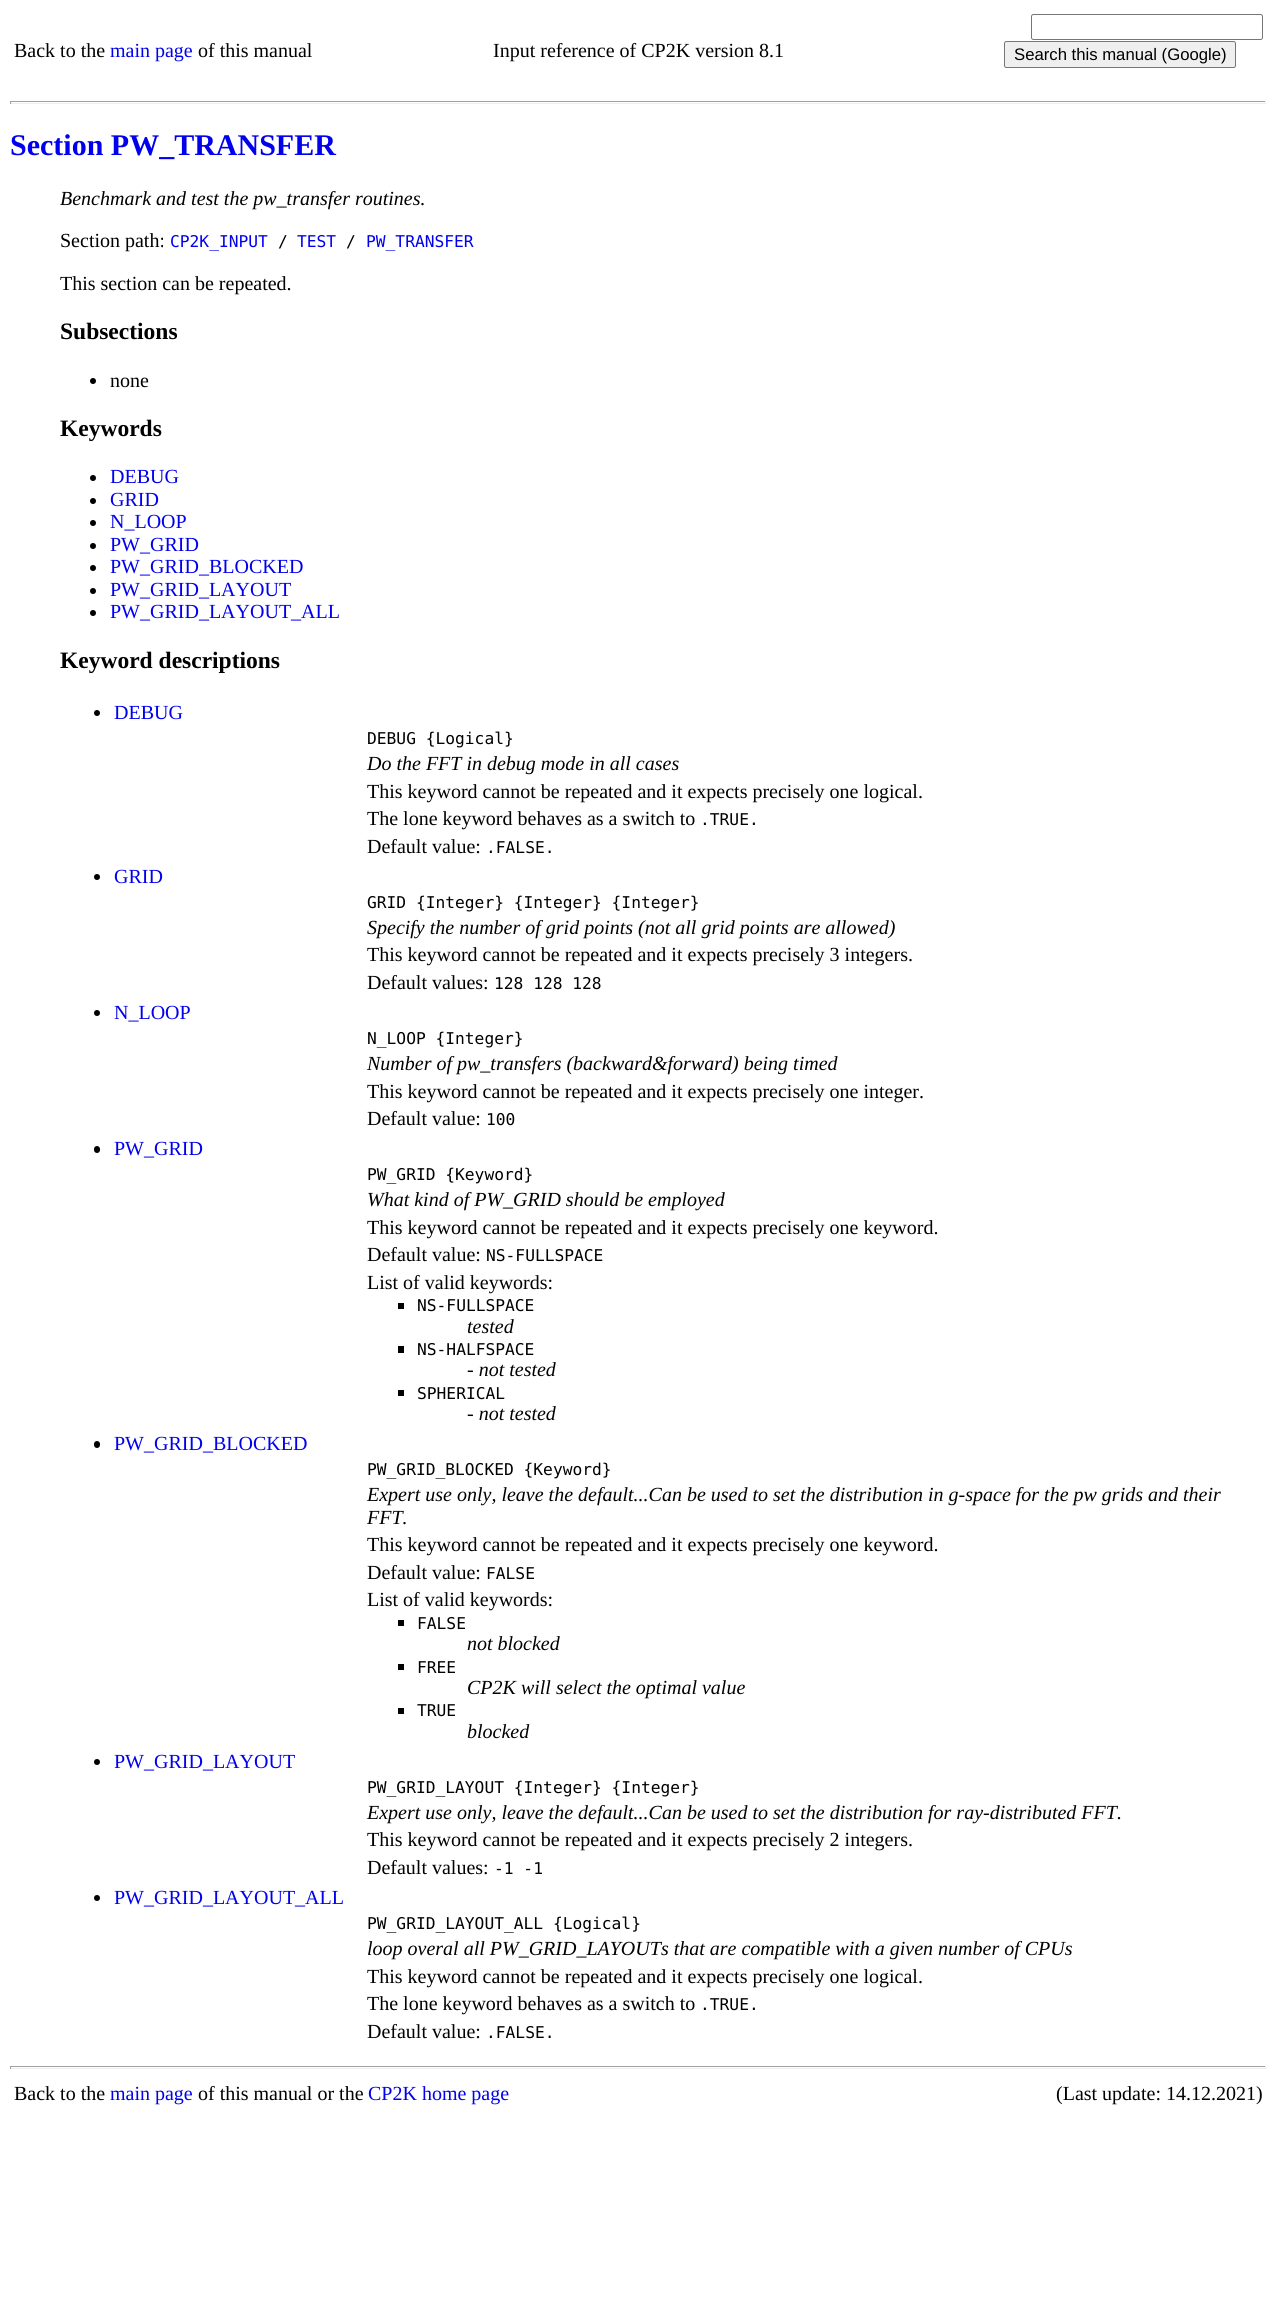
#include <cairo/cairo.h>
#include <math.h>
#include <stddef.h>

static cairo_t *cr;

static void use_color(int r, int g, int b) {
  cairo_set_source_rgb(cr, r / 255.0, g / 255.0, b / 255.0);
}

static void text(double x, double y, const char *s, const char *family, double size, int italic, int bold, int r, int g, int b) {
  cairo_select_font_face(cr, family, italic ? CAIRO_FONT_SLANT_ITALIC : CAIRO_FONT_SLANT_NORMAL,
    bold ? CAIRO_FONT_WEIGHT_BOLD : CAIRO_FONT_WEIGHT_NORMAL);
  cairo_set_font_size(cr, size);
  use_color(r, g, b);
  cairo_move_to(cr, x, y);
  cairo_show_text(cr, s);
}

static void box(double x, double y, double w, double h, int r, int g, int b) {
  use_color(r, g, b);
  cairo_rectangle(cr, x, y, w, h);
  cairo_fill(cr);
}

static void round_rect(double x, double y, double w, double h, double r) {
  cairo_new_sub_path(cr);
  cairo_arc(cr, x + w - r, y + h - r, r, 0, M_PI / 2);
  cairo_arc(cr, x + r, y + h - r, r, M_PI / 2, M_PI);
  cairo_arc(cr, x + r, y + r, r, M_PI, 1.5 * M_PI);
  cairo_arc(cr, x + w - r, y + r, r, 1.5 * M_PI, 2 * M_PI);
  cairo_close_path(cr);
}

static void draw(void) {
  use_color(255, 255, 255);
  cairo_paint(cr);
  round_rect(1031.5, 14.5, 231, 25, 2);
  use_color(118, 118, 118);
  cairo_set_line_width(cr, 1);
  cairo_stroke(cr);
  use_color(239, 239, 239);
  round_rect(1004.5, 41.5, 231, 26, 2);
  cairo_fill_preserve(cr);
  use_color(118, 118, 118);
  cairo_stroke(cr);
  box(10, 101, 1256, 1, 159, 159, 159);
  box(1265, 101, 1, 3, 238, 238, 238);
  box(10, 103, 1256, 1, 238, 238, 238);
  box(10, 101, 1, 3, 159, 159, 159);
  use_color(0, 0, 0);
  cairo_arc(cr, 93, 381, 3, 0, 2 * M_PI);
  cairo_fill(cr);
  cairo_arc(cr, 93, 478, 3, 0, 2 * M_PI);
  cairo_fill(cr);
  cairo_arc(cr, 93, 501, 3, 0, 2 * M_PI);
  cairo_fill(cr);
  cairo_arc(cr, 93, 523, 3, 0, 2 * M_PI);
  cairo_fill(cr);
  cairo_arc(cr, 93, 546, 3, 0, 2 * M_PI);
  cairo_fill(cr);
  cairo_arc(cr, 93, 568, 3, 0, 2 * M_PI);
  cairo_fill(cr);
  cairo_arc(cr, 93, 591, 3, 0, 2 * M_PI);
  cairo_fill(cr);
  cairo_arc(cr, 93, 613, 3, 0, 2 * M_PI);
  cairo_fill(cr);
  cairo_arc(cr, 97, 713, 3, 0, 2 * M_PI);
  cairo_fill(cr);
  cairo_arc(cr, 97, 877, 3, 0, 2 * M_PI);
  cairo_fill(cr);
  cairo_arc(cr, 97, 1013, 3, 0, 2 * M_PI);
  cairo_fill(cr);
  round_rect(94, 1146, 6, 7, 3);
  cairo_fill(cr);
  box(398, 1303, 6, 6, 0, 0, 0);
  box(398, 1346, 6, 7, 0, 0, 0);
  box(398, 1390, 6, 6, 0, 0, 0);
  round_rect(94, 1441, 6, 7, 3);
  cairo_fill(cr);
  box(398, 1620, 6, 6, 0, 0, 0);
  box(398, 1664, 6, 6, 0, 0, 0);
  box(398, 1708, 6, 6, 0, 0, 0);
  cairo_arc(cr, 97, 1762, 3, 0, 2 * M_PI);
  cairo_fill(cr);
  cairo_arc(cr, 97, 1898, 3, 0, 2 * M_PI);
  cairo_fill(cr);
  box(10, 2066, 1256, 1, 159, 159, 159);
  box(1265, 2066, 1, 3, 238, 238, 238);
  box(10, 2068, 1256, 1, 238, 238, 238);
  box(10, 2066, 1, 3, 159, 159, 159);
  text(14, 57, "Back to the", "Liberation Serif", 20, 0, 0, 0, 0, 0);
  text(110, 57, "main page", "Liberation Serif", 20, 0, 0, 0, 0, 238);
  text(198, 57, "of this manual", "Liberation Serif", 20, 0, 0, 0, 0, 0);
  text(493, 57, "Input reference of CP2K version 8.1", "Liberation Serif", 20, 0, 0, 0, 0, 0);
  text(1014, 60, "Search this manual (Google)", "Liberation Sans", 16.7, 0, 0, 0, 0, 0);
  text(10, 155, "Section PW_TRANSFER", "Liberation Serif", 30, 0, 1, 0, 0, 238);
  text(60, 205, "Benchmark and test the pw_transfer routines.", "Liberation Serif", 20, 1, 0, 0, 0, 0);
  text(60, 247, "Section path:", "Liberation Serif", 20, 0, 0, 0, 0, 0);
  text(170, 247, "CP2K_INPUT", "DejaVu Sans Mono", 16.25, 0, 0, 0, 0, 238);
  text(278, 247, "/", "DejaVu Sans Mono", 16.25, 0, 0, 0, 0, 0);
  text(297, 247, "TEST", "DejaVu Sans Mono", 16.25, 0, 0, 0, 0, 238);
  text(346, 247, "/", "DejaVu Sans Mono", 16.25, 0, 0, 0, 0, 0);
  text(366, 247, "PW_TRANSFER", "DejaVu Sans Mono", 16.25, 0, 0, 0, 0, 238);
  text(60, 290, "This section can be repeated.", "Liberation Serif", 20, 0, 0, 0, 0, 0);
  text(60, 339, "Subsections", "Liberation Serif", 23.5, 0, 1, 0, 0, 0);
  text(110, 387, "none", "Liberation Serif", 20, 0, 0, 0, 0, 0);
  text(60, 436, "Keywords", "Liberation Serif", 23.5, 0, 1, 0, 0, 0);
  text(110, 483, "DEBUG", "Liberation Serif", 20, 0, 0, 0, 0, 238);
  text(110, 506, "GRID", "Liberation Serif", 20, 0, 0, 0, 0, 238);
  text(110, 528, "N_LOOP", "Liberation Serif", 20, 0, 0, 0, 0, 238);
  text(110, 551, "PW_GRID", "Liberation Serif", 20, 0, 0, 0, 0, 238);
  text(110, 573, "PW_GRID_BLOCKED", "Liberation Serif", 20, 0, 0, 0, 0, 238);
  text(110, 596, "PW_GRID_LAYOUT", "Liberation Serif", 20, 0, 0, 0, 0, 238);
  text(110, 618, "PW_GRID_LAYOUT_ALL", "Liberation Serif", 20, 0, 0, 0, 0, 238);
  text(60, 668, "Keyword descriptions", "Liberation Serif", 23.5, 0, 1, 0, 0, 0);
  text(114, 719, "DEBUG", "Liberation Serif", 20, 0, 0, 0, 0, 238);
  text(367, 744, "DEBUG {Logical}", "DejaVu Sans Mono", 16.25, 0, 0, 0, 0, 0);
  text(367, 770, "Do the FFT in debug mode in all cases", "Liberation Serif", 20, 1, 0, 0, 0, 0);
  text(367, 798, "This keyword cannot be repeated and it expects precisely one logical.", "Liberation Serif", 20, 0, 0, 0, 0, 0);
  text(367, 825, "The lone keyword behaves as a switch to", "Liberation Serif", 20, 0, 0, 0, 0, 0);
  text(700, 825, ".TRUE.", "DejaVu Sans Mono", 16.25, 0, 0, 0, 0, 0);
  text(367, 853, "Default value:", "Liberation Serif", 20, 0, 0, 0, 0, 0);
  text(486, 853, ".FALSE.", "DejaVu Sans Mono", 16.25, 0, 0, 0, 0, 0);
  text(114, 883, "GRID", "Liberation Serif", 20, 0, 0, 0, 0, 238);
  text(367, 908, "GRID {Integer} {Integer} {Integer}", "DejaVu Sans Mono", 16.25, 0, 0, 0, 0, 0);
  text(367, 934, "Specify the number of grid points (not all grid points are allowed)", "Liberation Serif", 20, 1, 0, 0, 0, 0);
  text(367, 961, "This keyword cannot be repeated and it expects precisely 3 integers.", "Liberation Serif", 20, 0, 0, 0, 0, 0);
  text(367, 989, "Default values:", "Liberation Serif", 20, 0, 0, 0, 0, 0);
  text(494, 989, "128 128 128", "DejaVu Sans Mono", 16.25, 0, 0, 0, 0, 0);
  text(114, 1019, "N_LOOP", "Liberation Serif", 20, 0, 0, 0, 0, 238);
  text(367, 1044, "N_LOOP {Integer}", "DejaVu Sans Mono", 16.25, 0, 0, 0, 0, 0);
  text(367, 1070, "Number of pw_transfers (backward&forward) being timed", "Liberation Serif", 20, 1, 0, 0, 0, 0);
  text(367, 1098, "This keyword cannot be repeated and it expects precisely one integer.", "Liberation Serif", 20, 0, 0, 0, 0, 0);
  text(367, 1125, "Default value:", "Liberation Serif", 20, 0, 0, 0, 0, 0);
  text(486, 1125, "100", "DejaVu Sans Mono", 16.25, 0, 0, 0, 0, 0);
  text(114, 1155, "PW_GRID", "Liberation Serif", 20, 0, 0, 0, 0, 238);
  text(367, 1180, "PW_GRID {Keyword}", "DejaVu Sans Mono", 16.25, 0, 0, 0, 0, 0);
  text(367, 1206, "What kind of PW_GRID should be employed", "Liberation Serif", 20, 1, 0, 0, 0, 0);
  text(367, 1234, "This keyword cannot be repeated and it expects precisely one keyword.", "Liberation Serif", 20, 0, 0, 0, 0, 0);
  text(367, 1261, "Default value:", "Liberation Serif", 20, 0, 0, 0, 0, 0);
  text(486, 1261, "NS-FULLSPACE", "DejaVu Sans Mono", 16.25, 0, 0, 0, 0, 0);
  text(367, 1289, "List of valid keywords:", "Liberation Serif", 20, 0, 0, 0, 0, 0);
  text(417, 1311, "NS-FULLSPACE", "DejaVu Sans Mono", 16.25, 0, 0, 0, 0, 0);
  text(467, 1333, "tested", "Liberation Serif", 20, 1, 0, 0, 0, 0);
  text(417, 1355, "NS-HALFSPACE", "DejaVu Sans Mono", 16.25, 0, 0, 0, 0, 0);
  text(467, 1376, "- not tested", "Liberation Serif", 20, 1, 0, 0, 0, 0);
  text(417, 1399, "SPHERICAL", "DejaVu Sans Mono", 16.25, 0, 0, 0, 0, 0);
  text(467, 1420, "- not tested", "Liberation Serif", 20, 1, 0, 0, 0, 0);
  text(114, 1450, "PW_GRID_BLOCKED", "Liberation Serif", 20, 0, 0, 0, 0, 238);
  text(367, 1475, "PW_GRID_BLOCKED {Keyword}", "DejaVu Sans Mono", 16.25, 0, 0, 0, 0, 0);
  text(367, 1501, "Expert use only, leave the default...Can be used to set the distribution in g-space for the pw grids and their", "Liberation Serif", 20, 1, 0, 0, 0, 0);
  text(367, 1524, "FFT.", "Liberation Serif", 20, 1, 0, 0, 0, 0);
  text(367, 1551, "This keyword cannot be repeated and it expects precisely one keyword.", "Liberation Serif", 20, 0, 0, 0, 0, 0);
  text(367, 1579, "Default value:", "Liberation Serif", 20, 0, 0, 0, 0, 0);
  text(486, 1579, "FALSE", "DejaVu Sans Mono", 16.25, 0, 0, 0, 0, 0);
  text(367, 1606, "List of valid keywords:", "Liberation Serif", 20, 0, 0, 0, 0, 0);
  text(417, 1629, "FALSE", "DejaVu Sans Mono", 16.25, 0, 0, 0, 0, 0);
  text(467, 1650, "not blocked", "Liberation Serif", 20, 1, 0, 0, 0, 0);
  text(417, 1673, "FREE", "DejaVu Sans Mono", 16.25, 0, 0, 0, 0, 0);
  text(467, 1694, "CP2K will select the optimal value", "Liberation Serif", 20, 1, 0, 0, 0, 0);
  text(417, 1716, "TRUE", "DejaVu Sans Mono", 16.25, 0, 0, 0, 0, 0);
  text(467, 1738, "blocked", "Liberation Serif", 20, 1, 0, 0, 0, 0);
  text(114, 1768, "PW_GRID_LAYOUT", "Liberation Serif", 20, 0, 0, 0, 0, 238);
  text(367, 1793, "PW_GRID_LAYOUT {Integer} {Integer}", "DejaVu Sans Mono", 16.25, 0, 0, 0, 0, 0);
  text(367, 1819, "Expert use only, leave the default...Can be used to set the distribution for ray-distributed FFT.", "Liberation Serif", 20, 1, 0, 0, 0, 0);
  text(367, 1846, "This keyword cannot be repeated and it expects precisely 2 integers.", "Liberation Serif", 20, 0, 0, 0, 0, 0);
  text(367, 1874, "Default values:", "Liberation Serif", 20, 0, 0, 0, 0, 0);
  text(494, 1874, "-1 -1", "DejaVu Sans Mono", 16.25, 0, 0, 0, 0, 0);
  text(114, 1904, "PW_GRID_LAYOUT_ALL", "Liberation Serif", 20, 0, 0, 0, 0, 238);
  text(367, 1929, "PW_GRID_LAYOUT_ALL {Logical}", "DejaVu Sans Mono", 16.25, 0, 0, 0, 0, 0);
  text(367, 1955, "loop overal all PW_GRID_LAYOUTs that are compatible with a given number of CPUs", "Liberation Serif", 20, 1, 0, 0, 0, 0);
  text(367, 1983, "This keyword cannot be repeated and it expects precisely one logical.", "Liberation Serif", 20, 0, 0, 0, 0, 0);
  text(367, 2010, "The lone keyword behaves as a switch to", "Liberation Serif", 20, 0, 0, 0, 0, 0);
  text(700, 2010, ".TRUE.", "DejaVu Sans Mono", 16.25, 0, 0, 0, 0, 0);
  text(367, 2038, "Default value:", "Liberation Serif", 20, 0, 0, 0, 0, 0);
  text(486, 2038, ".FALSE.", "DejaVu Sans Mono", 16.25, 0, 0, 0, 0, 0);
  text(14, 2100, "Back to the", "Liberation Serif", 20, 0, 0, 0, 0, 0);
  text(110, 2100, "main page", "Liberation Serif", 20, 0, 0, 0, 0, 238);
  text(198, 2100, "of this manual or the", "Liberation Serif", 20, 0, 0, 0, 0, 0);
  text(368, 2100, "CP2K home page", "Liberation Serif", 20, 0, 0, 0, 0, 238);
  text(1056, 2100, "(Last update: 14.12.2021)", "Liberation Serif", 20, 0, 0, 0, 0, 0);
}

int main(void) {
  cairo_surface_t *surface = cairo_image_surface_create(CAIRO_FORMAT_RGB24, 1276, 2300);
  cr = cairo_create(surface);
  cairo_font_options_t *options = cairo_font_options_create();
  cairo_font_options_set_hint_metrics(options, CAIRO_HINT_METRICS_OFF);
  cairo_font_options_set_hint_style(options, CAIRO_HINT_STYLE_NONE);
  cairo_set_font_options(cr, options);
  cairo_set_miter_limit(cr, 4);
  draw();
  cairo_surface_write_to_png(surface, "out.png");
  cairo_font_options_destroy(options);
  cairo_destroy(cr);
  cairo_surface_destroy(surface);
  return 0;
}
